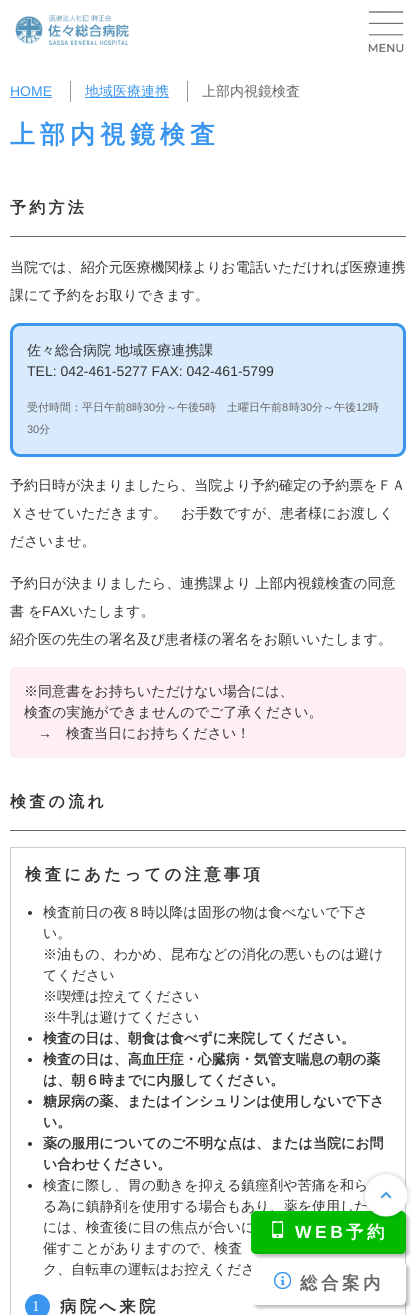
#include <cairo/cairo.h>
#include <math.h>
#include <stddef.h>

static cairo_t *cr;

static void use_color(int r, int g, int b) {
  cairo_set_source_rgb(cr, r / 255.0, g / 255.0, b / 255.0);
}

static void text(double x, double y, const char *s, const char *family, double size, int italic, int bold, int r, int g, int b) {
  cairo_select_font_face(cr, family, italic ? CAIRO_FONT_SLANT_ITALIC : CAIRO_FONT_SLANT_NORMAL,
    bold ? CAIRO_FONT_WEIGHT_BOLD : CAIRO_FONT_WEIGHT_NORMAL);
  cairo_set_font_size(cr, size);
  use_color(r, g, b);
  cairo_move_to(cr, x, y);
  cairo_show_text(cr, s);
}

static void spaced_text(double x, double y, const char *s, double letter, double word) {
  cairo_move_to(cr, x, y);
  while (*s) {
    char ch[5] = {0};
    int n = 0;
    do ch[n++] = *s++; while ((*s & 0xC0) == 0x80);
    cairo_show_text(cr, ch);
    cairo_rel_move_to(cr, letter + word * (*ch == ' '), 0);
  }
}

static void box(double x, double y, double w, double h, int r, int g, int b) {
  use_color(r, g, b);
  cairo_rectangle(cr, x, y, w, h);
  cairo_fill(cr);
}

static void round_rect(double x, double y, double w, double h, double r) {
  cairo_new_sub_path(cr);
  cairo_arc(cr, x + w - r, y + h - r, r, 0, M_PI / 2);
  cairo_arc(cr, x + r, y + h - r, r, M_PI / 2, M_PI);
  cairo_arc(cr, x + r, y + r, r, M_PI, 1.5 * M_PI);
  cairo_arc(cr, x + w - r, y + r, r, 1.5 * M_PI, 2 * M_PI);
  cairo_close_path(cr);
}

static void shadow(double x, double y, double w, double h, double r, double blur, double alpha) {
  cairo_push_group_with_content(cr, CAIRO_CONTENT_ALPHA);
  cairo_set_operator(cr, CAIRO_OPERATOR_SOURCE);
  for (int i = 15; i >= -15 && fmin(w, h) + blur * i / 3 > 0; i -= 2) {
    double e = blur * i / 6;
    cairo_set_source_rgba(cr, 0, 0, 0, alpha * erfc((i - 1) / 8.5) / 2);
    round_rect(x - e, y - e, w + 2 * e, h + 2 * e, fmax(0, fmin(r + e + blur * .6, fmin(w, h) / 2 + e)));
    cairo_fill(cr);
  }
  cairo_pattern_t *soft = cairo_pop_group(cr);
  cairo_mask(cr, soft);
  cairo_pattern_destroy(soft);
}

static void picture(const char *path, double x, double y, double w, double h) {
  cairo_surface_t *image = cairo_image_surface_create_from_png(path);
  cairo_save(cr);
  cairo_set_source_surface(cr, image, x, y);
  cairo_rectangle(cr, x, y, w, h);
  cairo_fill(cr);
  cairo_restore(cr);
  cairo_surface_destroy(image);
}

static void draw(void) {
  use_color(255, 255, 255);
  cairo_paint(cr);
  picture("img_01.png", 15, 15, 114, 30);
  picture("img_02.png", 368, 11, 36, 42);
  box(10, 97, 42, 1, 58, 149, 239);
  box(70, 81, 1, 21, 153, 153, 153);
  box(85, 97, 84, 1, 58, 149, 239);
  box(187, 81, 1, 21, 153, 153, 153);
  box(10, 236, 396, 1, 102, 102, 102);
  use_color(216, 234, 252);
  round_rect(11.5, 324.5, 393, 131, 8.5);
  cairo_fill_preserve(cr);
  use_color(58, 149, 239);
  cairo_set_line_width(cr, 3);
  cairo_stroke(cr);
  use_color(253, 239, 245);
  round_rect(10, 667, 396, 91, 4);
  cairo_fill(cr);
  box(10, 830, 396, 1, 102, 102, 102);
  cairo_rectangle(cr, 10.5, 847.5, 395, 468);
  use_color(204, 204, 204);
  cairo_set_line_width(cr, 1);
  cairo_stroke(cr);
  use_color(51, 51, 51);
  cairo_arc(cr, 30, 913, 2, 0, 2 * M_PI);
  cairo_fill(cr);
  cairo_arc(cr, 30, 1039, 2, 0, 2 * M_PI);
  cairo_fill(cr);
  cairo_arc(cr, 30, 1060, 2, 0, 2 * M_PI);
  cairo_fill(cr);
  cairo_arc(cr, 30, 1102, 2, 0, 2 * M_PI);
  cairo_fill(cr);
  cairo_arc(cr, 30, 1144, 2, 0, 2 * M_PI);
  cairo_fill(cr);
  cairo_arc(cr, 30, 1186, 2, 0, 2 * M_PI);
  cairo_fill(cr);
  use_color(58, 149, 239);
  cairo_arc(cr, 37.5, 1306.5, 12.5, 0, 2 * M_PI);
  cairo_fill(cr);
  use_color(0, 0, 0);
  shadow(254, 1214, 155, 43, 5, 1.5, 0.25);
  shadow(254, 1264, 155, 44, 5, 1.5, 0.25);
  text(10, 96, "HOME", "Liberation Sans", 14, 0, 0, 58, 149, 239);
  text(85, 96, "地域医療連携", "WenQuanYi Zen Hei Medium", 14, 0, 0, 58, 149, 239);
  text(202, 96, "上部内視鏡検査", "WenQuanYi Zen Hei Medium", 14, 0, 0, 102, 102, 102);
  cairo_select_font_face(cr, "WenQuanYi Zen Hei", CAIRO_FONT_SLANT_NORMAL, CAIRO_FONT_WEIGHT_BOLD);
  cairo_set_font_size(cr, 25);
  use_color(58, 149, 239);
  spaced_text(10, 143, "上部内視鏡検査", 5, 0);
  cairo_set_font_size(cr, 16);
  use_color(51, 51, 51);
  spaced_text(10, 213, "予約方法", 3.25, 0);
  text(10, 272, "当院では、紹介元医療機関様よりお電話いただければ医療連携", "WenQuanYi Zen Hei Medium", 14, 0, 0, 51, 51, 51);
  text(10, 300, "課にて予約をお取りできます。", "WenQuanYi Zen Hei Medium", 14, 0, 0, 51, 51, 51);
  text(27, 355, "佐々総合病院 地域医療連携課", "WenQuanYi Zen Hei Medium", 14, 0, 0, 51, 51, 51);
  text(27, 376, "TEL: 042-461-5277 FAX: 042-461-5799", "Liberation Sans", 14, 0, 0, 51, 51, 51);
  text(27, 411, "受付時間：平日午前", "WenQuanYi Zen Hei Medium", 11, 0, 0, 102, 102, 102);
  text(126, 411, "8", "Liberation Sans", 11, 0, 0, 102, 102, 102);
  text(132, 411, "時", "WenQuanYi Zen Hei Medium", 11, 0, 0, 102, 102, 102);
  text(143, 411, "30", "Liberation Sans", 11, 0, 0, 102, 102, 102);
  text(155, 411, "分～午後", "WenQuanYi Zen Hei Medium", 11, 0, 0, 102, 102, 102);
  text(199, 411, "5", "Liberation Sans", 11, 0, 0, 102, 102, 102);
  text(205, 411, "時　土曜日午前", "WenQuanYi Zen Hei Medium", 11, 0, 0, 102, 102, 102);
  text(282, 411, "8", "Liberation Sans", 11, 0, 0, 102, 102, 102);
  text(289, 411, "時", "WenQuanYi Zen Hei Medium", 11, 0, 0, 102, 102, 102);
  text(300, 411, "30", "Liberation Sans", 11, 0, 0, 102, 102, 102);
  text(312, 411, "分～午後", "WenQuanYi Zen Hei Medium", 11, 0, 0, 102, 102, 102);
  text(356, 411, "12", "Liberation Sans", 11, 0, 0, 102, 102, 102);
  text(368, 411, "時", "WenQuanYi Zen Hei Medium", 11, 0, 0, 102, 102, 102);
  text(27, 433, "30", "Liberation Sans", 11, 0, 0, 102, 102, 102);
  text(39, 433, "分", "WenQuanYi Zen Hei Medium", 11, 0, 0, 102, 102, 102);
  text(10, 490, "予約日時が決まりましたら、当院より予約確定の予約票をＦＡ", "WenQuanYi Zen Hei Medium", 14, 0, 0, 51, 51, 51);
  text(10, 518, "Ｘさせていただきます。　お手数ですが、患者様にお渡しく", "WenQuanYi Zen Hei Medium", 14, 0, 0, 51, 51, 51);
  text(10, 546, "ださいませ。", "WenQuanYi Zen Hei Medium", 14, 0, 0, 51, 51, 51);
  text(10, 588, "予約日が決まりましたら、連携課より 上部内視鏡検査の同意", "WenQuanYi Zen Hei Medium", 14, 0, 0, 51, 51, 51);
  text(10, 616, "書 を", "WenQuanYi Zen Hei Medium", 14, 0, 0, 51, 51, 51);
  text(42, 616, "FAX", "Liberation Sans", 14, 0, 0, 51, 51, 51);
  text(69, 616, "いたします。", "WenQuanYi Zen Hei Medium", 14, 0, 0, 51, 51, 51);
  text(10, 644, "紹介医の先生の署名及び患者様の署名をお願いいたします。", "WenQuanYi Zen Hei Medium", 14, 0, 0, 51, 51, 51);
  text(24, 696, "※同意書をお持ちいただけない場合には、", "WenQuanYi Zen Hei Medium", 14, 0, 0, 51, 51, 51);
  text(24, 717, "検査の実施ができませんのでご了承ください。", "WenQuanYi Zen Hei Medium", 14, 0, 0, 51, 51, 51);
  text(38, 738, "→", "Liberation Sans", 14, 0, 0, 51, 51, 51);
  text(66, 738, "検査当日にお持ちください！", "WenQuanYi Zen Hei Medium", 14, 0, 0, 51, 51, 51);
  cairo_select_font_face(cr, "WenQuanYi Zen Hei", CAIRO_FONT_SLANT_NORMAL, CAIRO_FONT_WEIGHT_BOLD);
  cairo_set_font_size(cr, 16);
  spaced_text(10, 807, "検査の流れ", 3.25, 0);
  cairo_set_font_size(cr, 16.4);
  spaced_text(25, 880, "検査にあたっての注意事項", 3.25, 0);
  text(43, 917, "検査前日の夜８時以降は固形の物は食べないで下さ", "WenQuanYi Zen Hei Medium", 14, 0, 0, 51, 51, 51);
  text(43, 938, "い。", "WenQuanYi Zen Hei Medium", 14, 0, 0, 51, 51, 51);
  text(43, 959, "※油もの、わかめ、昆布などの消化の悪いものは避け", "WenQuanYi Zen Hei Medium", 14, 0, 0, 51, 51, 51);
  text(43, 980, "てください", "WenQuanYi Zen Hei Medium", 14, 0, 0, 51, 51, 51);
  text(43, 1001, "※喫煙は控えてください", "WenQuanYi Zen Hei Medium", 14, 0, 0, 51, 51, 51);
  text(43, 1022, "※牛乳は避けてください", "WenQuanYi Zen Hei Medium", 14, 0, 0, 51, 51, 51);
  text(43, 1043, "検査の日は、朝食は食べずに来院してください。", "WenQuanYi Zen Hei", 14, 0, 1, 51, 51, 51);
  text(43, 1064, "検査の日は、高血圧症・心臓病・気管支喘息の朝の薬", "WenQuanYi Zen Hei", 14, 0, 1, 51, 51, 51);
  text(43, 1085, "は、朝６時までに内服してください。", "WenQuanYi Zen Hei", 14, 0, 1, 51, 51, 51);
  text(43, 1106, "糖尿病の薬、またはインシュリンは使用しないで下さ", "WenQuanYi Zen Hei", 14, 0, 1, 51, 51, 51);
  text(43, 1127, "い。", "WenQuanYi Zen Hei", 14, 0, 1, 51, 51, 51);
  text(43, 1148, "薬の服用についてのご不明な点は、または当院にお問", "WenQuanYi Zen Hei", 14, 0, 1, 51, 51, 51);
  text(43, 1169, "い合わせください。", "WenQuanYi Zen Hei", 14, 0, 1, 51, 51, 51);
  text(43, 1190, "検査に際し、胃の動きを抑える鎮痙剤や苦痛を和ら", "WenQuanYi Zen Hei Medium", 14, 0, 0, 51, 51, 51);
  text(43, 1211, "る為に鎮静剤を使用する場合もあり、薬を使用した", "WenQuanYi Zen Hei Medium", 14, 0, 0, 51, 51, 51);
  text(43, 1232, "には、検査後に目の焦点が合いに", "WenQuanYi Zen Hei Medium", 14, 0, 0, 51, 51, 51);
  text(43, 1253, "催すことがありますので、検査", "WenQuanYi Zen Hei Medium", 14, 0, 0, 51, 51, 51);
  text(43, 1274, "ク、自転車の運転はお控えくださ", "WenQuanYi Zen Hei Medium", 14, 0, 0, 51, 51, 51);
  cairo_select_font_face(cr, "Liberation Serif", CAIRO_FONT_SLANT_NORMAL, CAIRO_FONT_WEIGHT_NORMAL);
  cairo_set_font_size(cr, 15);
  use_color(255, 255, 255);
  spaced_text(32, 1311, "1", 3.25, 0);
  cairo_select_font_face(cr, "WenQuanYi Zen Hei", CAIRO_FONT_SLANT_NORMAL, CAIRO_FONT_WEIGHT_BOLD);
  cairo_set_font_size(cr, 16.4);
  use_color(51, 51, 51);
  spaced_text(60, 1312, "病院へ来院", 3.25, 0);
  use_color(0, 187, 0);
  round_rect(251, 1211, 155, 43, 5);
  cairo_fill(cr);
  picture("img_03.png", 361, 1171, 50, 49);
  picture("img_04.png", 272, 1221, 12, 17);
  cairo_select_font_face(cr, "Liberation Sans", CAIRO_FONT_SLANT_NORMAL, CAIRO_FONT_WEIGHT_BOLD);
  cairo_set_font_size(cr, 17.5);
  use_color(255, 255, 255);
  spaced_text(295, 1238, "WEB", 3.5, 0);
  cairo_select_font_face(cr, "WenQuanYi Zen Hei", CAIRO_FONT_SLANT_NORMAL, CAIRO_FONT_WEIGHT_BOLD);
  spaced_text(346, 1238, "予約", 3.5, 0);
  round_rect(251, 1261, 155, 44, 5);
  cairo_fill(cr);
  picture("img_05.png", 274, 1272, 17, 17);
  use_color(102, 102, 102);
  spaced_text(300, 1289, "総合案内", 3.5, 0);
}

int main(void) {
  cairo_surface_t *surface = cairo_image_surface_create(CAIRO_FORMAT_RGB24, 416, 1315);
  cr = cairo_create(surface);
  cairo_font_options_t *options = cairo_font_options_create();
  cairo_font_options_set_hint_metrics(options, CAIRO_HINT_METRICS_OFF);
  cairo_font_options_set_hint_style(options, CAIRO_HINT_STYLE_NONE);
  cairo_set_font_options(cr, options);
  cairo_set_miter_limit(cr, 4);
  draw();
  cairo_surface_write_to_png(surface, "out.png");
  cairo_font_options_destroy(options);
  cairo_destroy(cr);
  cairo_surface_destroy(surface);
  return 0;
}
